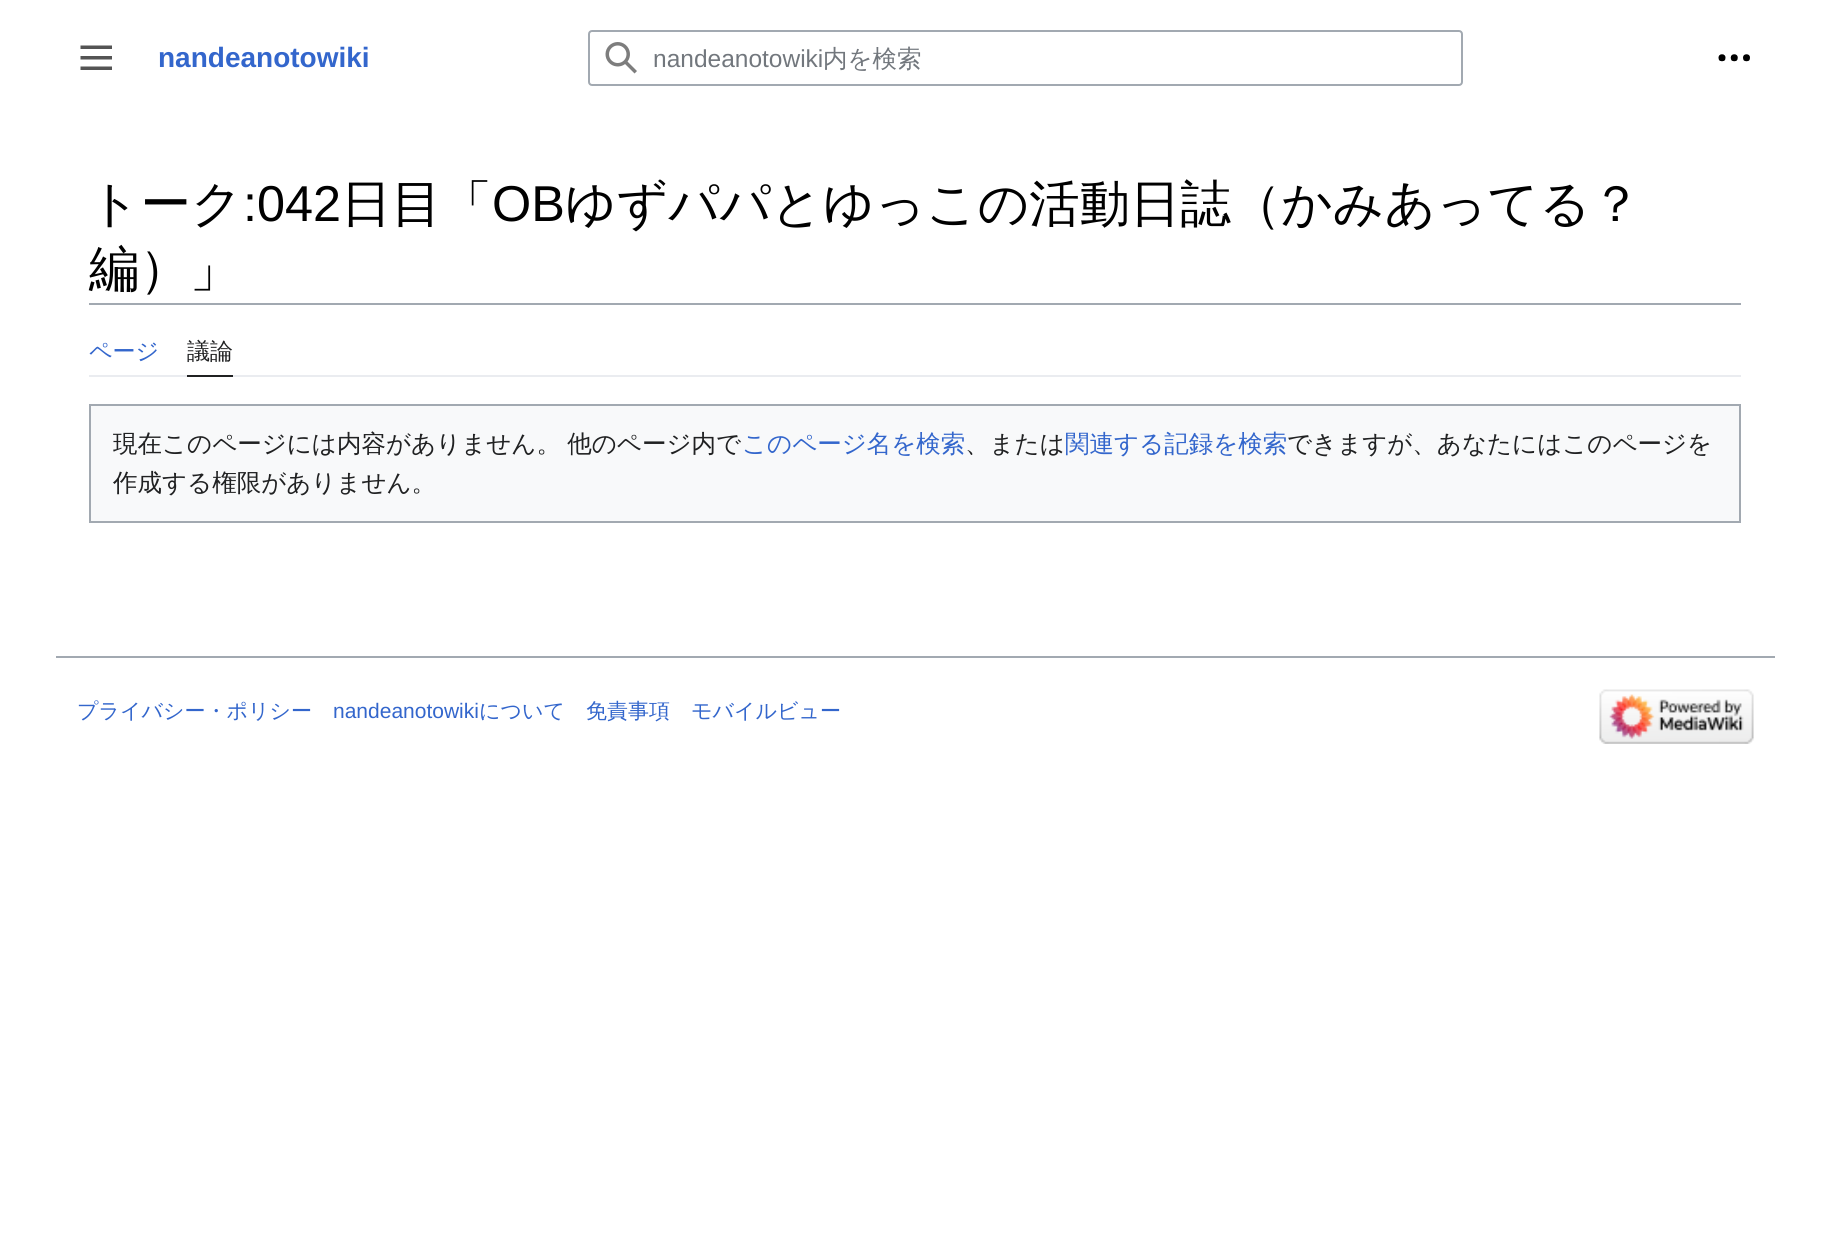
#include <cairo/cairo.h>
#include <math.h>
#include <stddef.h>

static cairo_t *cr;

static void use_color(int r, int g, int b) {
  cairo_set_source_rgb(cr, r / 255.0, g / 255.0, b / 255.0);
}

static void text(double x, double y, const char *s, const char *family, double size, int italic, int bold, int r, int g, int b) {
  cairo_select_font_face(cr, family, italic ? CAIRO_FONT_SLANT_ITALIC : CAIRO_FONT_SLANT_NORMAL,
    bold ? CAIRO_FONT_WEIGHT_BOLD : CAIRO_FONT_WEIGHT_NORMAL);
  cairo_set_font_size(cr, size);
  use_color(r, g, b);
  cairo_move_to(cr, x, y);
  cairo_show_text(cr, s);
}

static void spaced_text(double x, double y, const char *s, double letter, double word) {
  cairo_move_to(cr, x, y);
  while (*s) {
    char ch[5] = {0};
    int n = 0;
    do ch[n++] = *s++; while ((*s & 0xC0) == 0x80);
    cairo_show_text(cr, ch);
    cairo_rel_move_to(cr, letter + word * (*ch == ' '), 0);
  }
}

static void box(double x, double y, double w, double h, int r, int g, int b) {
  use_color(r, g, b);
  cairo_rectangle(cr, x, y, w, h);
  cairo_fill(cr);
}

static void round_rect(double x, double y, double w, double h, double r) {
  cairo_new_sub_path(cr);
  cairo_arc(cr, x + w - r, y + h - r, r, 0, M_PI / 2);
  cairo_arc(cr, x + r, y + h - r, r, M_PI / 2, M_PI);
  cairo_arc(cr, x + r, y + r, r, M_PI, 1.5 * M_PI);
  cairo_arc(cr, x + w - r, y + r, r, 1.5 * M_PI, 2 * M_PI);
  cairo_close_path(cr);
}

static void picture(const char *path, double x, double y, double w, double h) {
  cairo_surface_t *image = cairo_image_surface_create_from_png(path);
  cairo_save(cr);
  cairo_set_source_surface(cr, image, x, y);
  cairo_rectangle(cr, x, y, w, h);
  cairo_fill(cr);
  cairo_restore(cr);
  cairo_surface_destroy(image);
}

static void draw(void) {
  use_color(255, 255, 255);
  cairo_paint(cr);
  picture("img_01.png", 80, 45, 32, 25);
  round_rect(589, 31, 873, 54, 3);
  use_color(162, 169, 177);
  cairo_stroke(cr);
  picture("img_02.png", 605, 42, 32, 32);
  picture("img_03.png", 1718, 54, 32, 8);
  box(89, 303, 1652, 2, 162, 169, 177);
  box(89, 375, 1652, 2, 234, 236, 240);
  box(187, 375, 46, 2, 32, 33, 34);
  use_color(248, 249, 250);
  cairo_rectangle(cr, 90, 405, 1650, 117);
  cairo_fill_preserve(cr);
  use_color(162, 169, 177);
  cairo_stroke(cr);
  box(56, 656, 1719, 2, 162, 169, 177);
  picture("img_04.png", 1599, 689, 155, 55);
  text(158, 67, "nandeanotowiki", "Liberation Sans", 28, 0, 1, 51, 102, 204);
  text(653, 67, "nandeanotowiki", "Liberation Sans", 24.5, 0, 0, 114, 119, 125);
  text(823, 67, "内を検索", "WenQuanYi Zen Hei Medium", 24.5, 0, 0, 114, 119, 125);
  text(89, 221, "トーク", "WenQuanYi Zen Hei Medium", 50.4, 0, 0, 0, 0, 0);
  text(243, 221, ":042", "Liberation Sans", 50.4, 0, 0, 0, 0, 0);
  text(341, 221, "日目「", "WenQuanYi Zen Hei Medium", 50.4, 0, 0, 0, 0, 0);
  text(492, 221, "OB", "Liberation Sans", 50.4, 0, 0, 0, 0, 0);
  text(565, 221, "ゆずパパとゆっこの活動日誌（かみあってる？", "WenQuanYi Zen Hei Medium", 50.4, 0, 0, 0, 0, 0);
  text(89, 286, "編）」", "WenQuanYi Zen Hei Medium", 50.4, 0, 0, 0, 0, 0);
  text(89, 359, "ページ", "WenQuanYi Zen Hei Medium", 23, 0, 0, 51, 102, 204);
  text(187, 359, "議論", "WenQuanYi Zen Hei Medium", 23, 0, 0, 32, 33, 34);
  cairo_set_font_size(cr, 24.5);
  spaced_text(113, 452, "現在このページには内容がありません。 他のページ内で", 0, -1);
  text(742, 452, "このページ名を検索", "WenQuanYi Zen Hei Medium", 24.5, 0, 0, 51, 102, 204);
  text(965, 452, "、または", "WenQuanYi Zen Hei Medium", 24.5, 0, 0, 32, 33, 34);
  text(1065, 452, "関連する記録を検索", "WenQuanYi Zen Hei Medium", 24.5, 0, 0, 51, 102, 204);
  text(1287, 452, "できますが、あなたにはこのページを", "WenQuanYi Zen Hei Medium", 24.5, 0, 0, 32, 33, 34);
  text(113, 491, "作成する権限がありません。", "WenQuanYi Zen Hei Medium", 24.5, 0, 0, 32, 33, 34);
  text(77, 718, "プライバシー・ポリシー", "WenQuanYi Zen Hei Medium", 21, 0, 0, 51, 102, 204);
  text(333, 718, "nandeanotowiki", "Liberation Sans", 21, 0, 0, 51, 102, 204);
  text(479, 718, "について", "WenQuanYi Zen Hei Medium", 21, 0, 0, 51, 102, 204);
  text(586, 718, "免責事項", "WenQuanYi Zen Hei Medium", 21, 0, 0, 51, 102, 204);
  text(691, 718, "モバイルビュー", "WenQuanYi Zen Hei Medium", 21, 0, 0, 51, 102, 204);
}

int main(void) {
  cairo_surface_t *surface = cairo_image_surface_create(CAIRO_FORMAT_RGB24, 1829, 1258);
  cr = cairo_create(surface);
  cairo_font_options_t *options = cairo_font_options_create();
  cairo_font_options_set_hint_metrics(options, CAIRO_HINT_METRICS_OFF);
  cairo_font_options_set_hint_style(options, CAIRO_HINT_STYLE_NONE);
  cairo_set_font_options(cr, options);
  cairo_set_miter_limit(cr, 4);
  draw();
  cairo_surface_write_to_png(surface, "out.png");
  cairo_font_options_destroy(options);
  cairo_destroy(cr);
  cairo_surface_destroy(surface);
  return 0;
}
